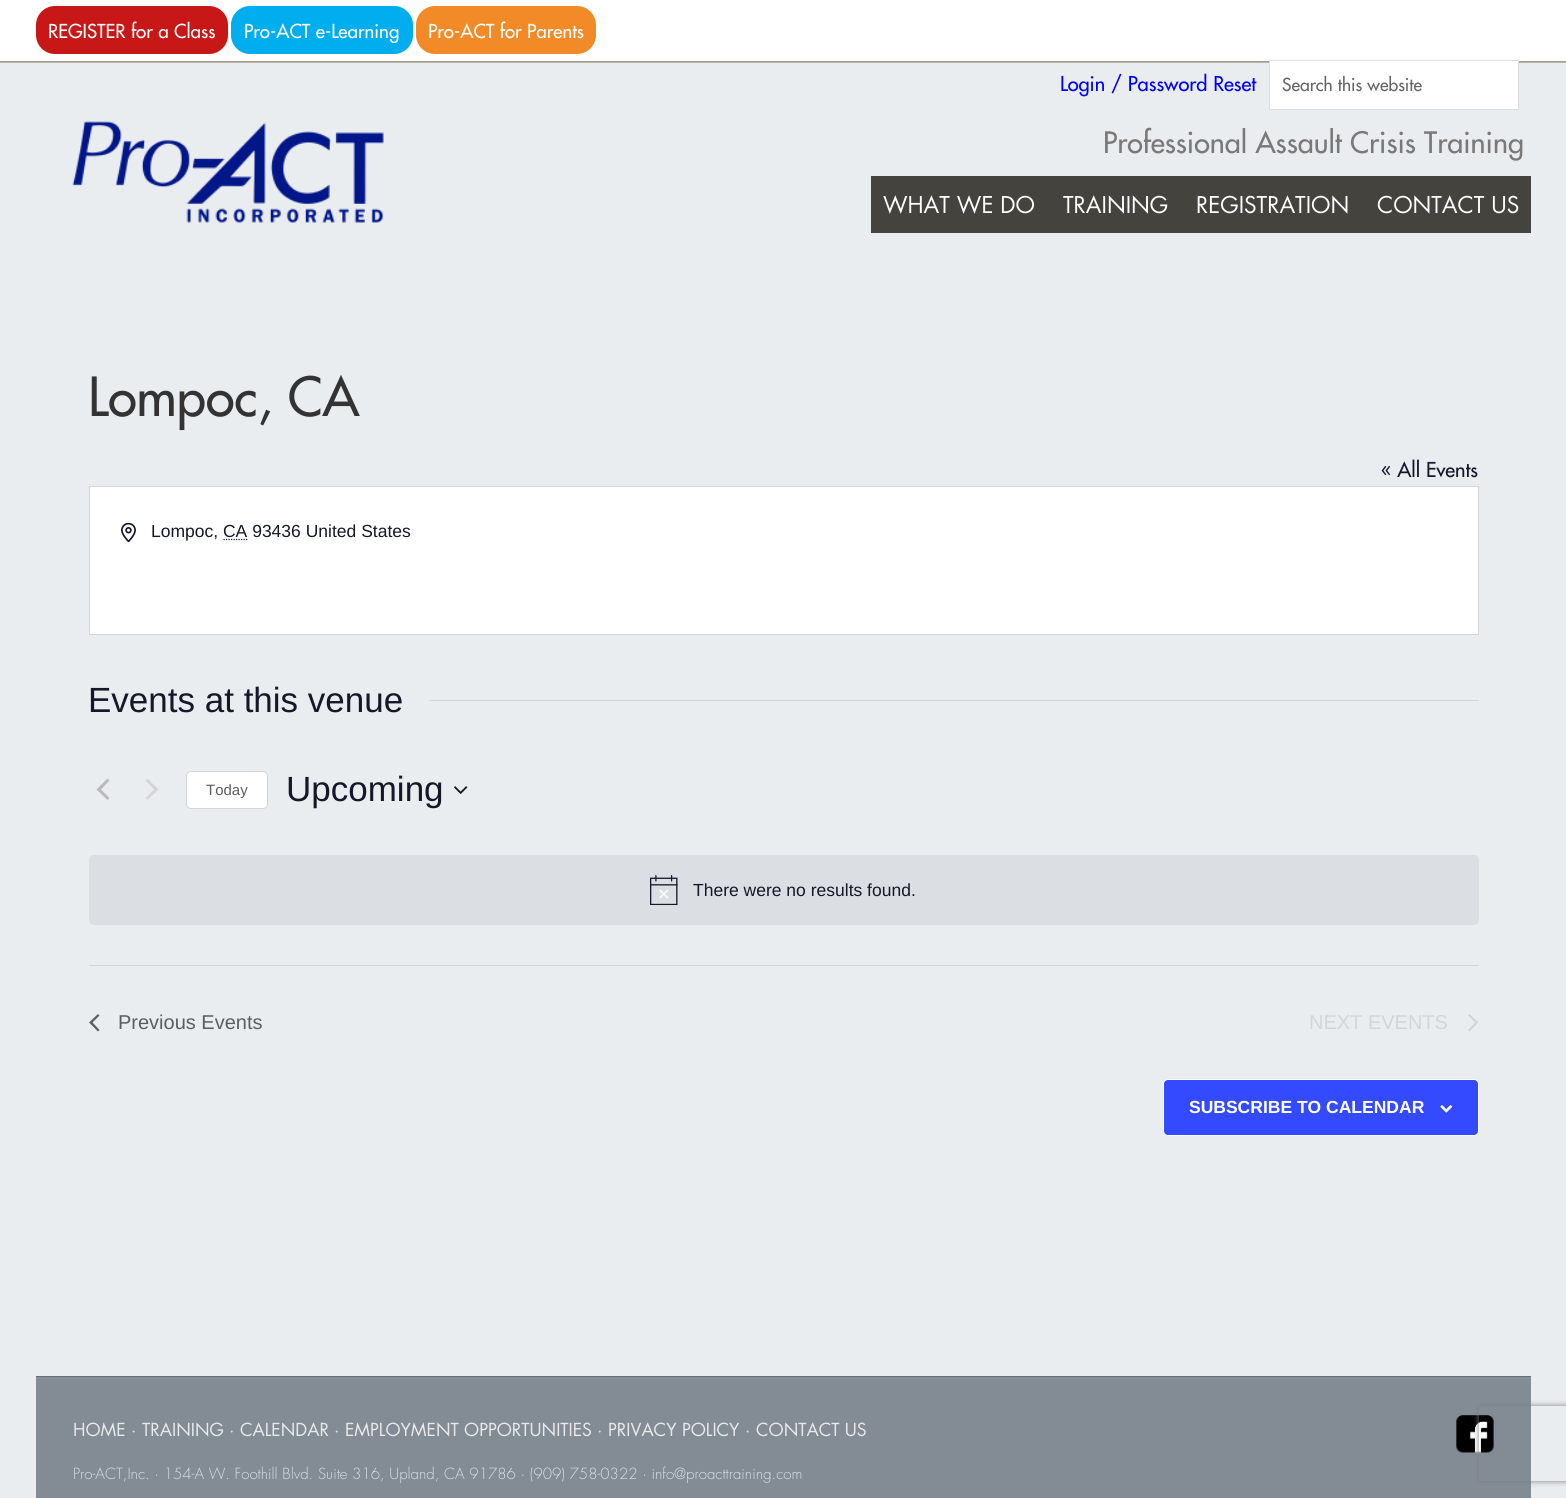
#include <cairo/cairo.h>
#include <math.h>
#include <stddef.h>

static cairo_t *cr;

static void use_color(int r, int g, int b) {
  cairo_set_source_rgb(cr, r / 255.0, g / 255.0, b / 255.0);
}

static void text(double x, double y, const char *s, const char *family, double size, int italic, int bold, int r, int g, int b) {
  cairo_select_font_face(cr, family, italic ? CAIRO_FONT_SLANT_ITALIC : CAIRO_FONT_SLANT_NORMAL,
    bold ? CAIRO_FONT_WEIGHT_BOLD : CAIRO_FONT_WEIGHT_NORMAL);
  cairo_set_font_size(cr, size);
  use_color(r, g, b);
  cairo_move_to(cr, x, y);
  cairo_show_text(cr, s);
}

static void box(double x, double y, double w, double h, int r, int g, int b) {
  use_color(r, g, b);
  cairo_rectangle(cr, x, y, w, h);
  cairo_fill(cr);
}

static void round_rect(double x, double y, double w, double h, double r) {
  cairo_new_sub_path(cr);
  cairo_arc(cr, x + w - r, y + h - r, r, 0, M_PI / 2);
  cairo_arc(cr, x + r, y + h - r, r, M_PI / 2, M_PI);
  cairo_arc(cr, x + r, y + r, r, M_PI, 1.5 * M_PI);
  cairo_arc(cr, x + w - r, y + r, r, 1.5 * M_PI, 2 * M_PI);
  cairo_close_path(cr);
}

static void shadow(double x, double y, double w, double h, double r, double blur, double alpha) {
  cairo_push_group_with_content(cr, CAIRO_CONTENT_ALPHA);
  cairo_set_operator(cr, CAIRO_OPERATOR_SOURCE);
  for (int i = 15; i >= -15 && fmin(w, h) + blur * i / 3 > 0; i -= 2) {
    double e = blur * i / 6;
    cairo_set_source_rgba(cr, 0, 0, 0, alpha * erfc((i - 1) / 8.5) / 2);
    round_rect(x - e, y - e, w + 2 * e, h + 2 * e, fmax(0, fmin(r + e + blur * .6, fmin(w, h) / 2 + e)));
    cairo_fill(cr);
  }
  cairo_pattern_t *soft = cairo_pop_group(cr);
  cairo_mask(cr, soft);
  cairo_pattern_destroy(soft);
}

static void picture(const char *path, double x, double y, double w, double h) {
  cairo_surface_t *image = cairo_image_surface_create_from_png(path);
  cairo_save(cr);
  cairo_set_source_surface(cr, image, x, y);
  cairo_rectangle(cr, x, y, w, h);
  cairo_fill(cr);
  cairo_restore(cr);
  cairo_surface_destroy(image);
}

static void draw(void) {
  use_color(234, 237, 240);
  cairo_paint(cr);
  picture("img_01.png", 0, 0, 1566, 63);
  use_color(199, 23, 23);
  round_rect(36, 6, 192, 48, 19);
  cairo_fill(cr);
  use_color(0, 174, 239);
  round_rect(231, 6, 182, 48, 19);
  cairo_fill(cr);
  use_color(242, 139, 39);
  round_rect(416, 6, 180, 48, 19);
  cairo_fill(cr);
  use_color(255, 255, 255);
  cairo_rectangle(cr, 1269.5, 60.5, 249, 49);
  cairo_fill_preserve(cr);
  use_color(221, 221, 221);
  cairo_set_line_width(cr, 1);
  cairo_stroke(cr);
  picture("img_02.png", 72, 121, 312, 102);
  box(871, 176, 660, 57, 69, 67, 62);
  use_color(255, 255, 255);
  cairo_rectangle(cr, 89.5, 486.5, 1389, 148);
  cairo_fill_preserve(cr);
  use_color(213, 213, 213);
  cairo_stroke(cr);
  picture("img_03.png", 121, 523, 15, 20);
  cairo_new_path(cr);
  cairo_move_to(cr, 223.5, 539.5);
  cairo_line_to(cr, 248, 539.5);
  use_color(20, 24, 39);
  cairo_set_line_width(cr, 1.2);
  cairo_set_dash(cr, (double[]){1.25, 1.25}, 2, 0);
  cairo_stroke(cr);
  box(429, 700, 1050, 1, 213, 213, 213);
  use_color(186, 186, 186);
  cairo_new_path(cr);
  cairo_move_to(cr, 109.5, 798);
  cairo_line_to(cr, 107.5, 800);
  cairo_line_to(cr, 96.5, 789.5);
  cairo_line_to(cr, 107.5, 778.5);
  cairo_line_to(cr, 109.5, 780.5);
  cairo_line_to(cr, 101, 789.5);
  cairo_close_path(cr);
  cairo_fill(cr);
  use_color(213, 213, 213);
  cairo_new_path(cr);
  cairo_move_to(cr, 145.5, 780.5);
  cairo_line_to(cr, 147.5, 778.5);
  cairo_line_to(cr, 158.5, 789.5);
  cairo_line_to(cr, 147.5, 800);
  cairo_line_to(cr, 145.5, 798);
  cairo_line_to(cr, 154, 789.5);
  cairo_close_path(cr);
  cairo_fill(cr);
  use_color(255, 255, 255);
  round_rect(186.5, 771.5, 81, 37, 4.5);
  cairo_fill_preserve(cr);
  use_color(213, 213, 213);
  cairo_set_line_width(cr, 1);
  cairo_set_dash(cr, NULL, 0, 0);
  cairo_stroke(cr);
  picture("img_04.png", 454, 786, 14, 8);
  use_color(219, 222, 226);
  round_rect(89, 855, 1390, 70, 5);
  cairo_fill(cr);
  picture("img_05.png", 650, 875, 28, 30);
  box(89, 965, 1390, 1, 213, 213, 213);
  use_color(93, 93, 93);
  cairo_new_path(cr);
  cairo_move_to(cr, 99.5, 1030);
  cairo_line_to(cr, 98, 1031.5);
  cairo_line_to(cr, 89, 1022.5);
  cairo_line_to(cr, 98, 1014);
  cairo_line_to(cr, 99.5, 1015.5);
  cairo_line_to(cr, 92.5, 1022.5);
  cairo_close_path(cr);
  cairo_fill(cr);
  use_color(213, 213, 213);
  cairo_new_path(cr);
  cairo_move_to(cr, 1468, 1015.5);
  cairo_line_to(cr, 1469.5, 1014);
  cairo_line_to(cr, 1478.5, 1022.5);
  cairo_line_to(cr, 1469.5, 1031.5);
  cairo_line_to(cr, 1468, 1030);
  cairo_line_to(cr, 1475, 1022.5);
  cairo_close_path(cr);
  cairo_fill(cr);
  use_color(51, 74, 255);
  round_rect(1163.5, 1079.5, 315, 56, 4.5);
  cairo_fill_preserve(cr);
  use_color(255, 255, 255);
  cairo_stroke(cr);
  picture("img_06.png", 1440, 1105, 13, 8);
  box(36, 1377, 1495, 121, 131, 139, 149);
  box(36, 1378, 1495, 1, 140, 147, 156);
  box(36, 1376, 1495, 1, 105, 111, 119);
  picture("img_07.png", 1456, 1415, 38, 38);
  cairo_save(cr);
  cairo_set_fill_rule(cr, CAIRO_FILL_RULE_EVEN_ODD);
  cairo_new_path(cr);
  cairo_move_to(cr, 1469, 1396);
  cairo_line_to(cr, 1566, 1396);
  cairo_line_to(cr, 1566, 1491);
  cairo_line_to(cr, 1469, 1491);
  cairo_close_path(cr);
  cairo_move_to(cr, 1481.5, 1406);
  cairo_line_to(cr, 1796.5, 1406);
  cairo_curve_to(cr, 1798, 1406, 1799, 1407, 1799, 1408.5);
  cairo_line_to(cr, 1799, 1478.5);
  cairo_curve_to(cr, 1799, 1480, 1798, 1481, 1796.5, 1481);
  cairo_line_to(cr, 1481.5, 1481);
  cairo_curve_to(cr, 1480, 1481, 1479, 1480, 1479, 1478.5);
  cairo_line_to(cr, 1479, 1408.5);
  cairo_curve_to(cr, 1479, 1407, 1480, 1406, 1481.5, 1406);
  cairo_close_path(cr);
  cairo_clip(cr);
  use_color(128, 128, 128);
  shadow(1479, 1406, 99, 75, 2.5, 3, 1);
  cairo_restore(cr);
  text(48, 38, "REGISTER for a Class", "Futura Medium", 18.75, 0, 0, 255, 255, 255);
  text(244, 38, "Pro-ACT e-Learning", "Futura Medium", 18.75, 0, 0, 255, 255, 255);
  text(428, 38, "Pro-ACT for Parents", "Futura Medium", 18.75, 0, 0, 255, 255, 255);
  text(1060, 91, "Login / Password Reset", "Futura Medium", 20, 0, 0, 0, 0, 255);
  text(1282, 91, "Search this website", "Futura Medium", 17.5, 0, 0, 102, 102, 102);
  text(1103, 153, "Professional Assault Crisis Training", "Futura Medium", 28.75, 0, 0, 122, 121, 120);
  text(883, 213, "WHAT WE DO", "Futura", 22.5, 0, 0, 255, 255, 255);
  text(1063, 213, "TRAINING", "Futura", 22.5, 0, 0, 255, 255, 255);
  text(1196, 213, "REGISTRATION", "Futura", 22.5, 0, 0, 255, 255, 255);
  text(1377, 213, "CONTACT US", "Futura", 22.5, 0, 0, 255, 255, 255);
  text(88, 416, "Lompoc, CA", "Futura Medium", 52.5, 0, 0, 51, 51, 51);
  text(1381, 477, "« All Events", "Futura Medium", 20, 0, 0, 20, 24, 39);
  text(151, 537, "Lompoc, CA 93436 United States", "Liberation Sans", 17.5, 0, 0, 20, 24, 39);
  text(88, 712, "Events at this venue", "Liberation Sans", 35, 0, 0, 20, 24, 39);
  text(206, 795, "Today", "Liberation Sans", 15, 0, 0, 93, 93, 93);
  text(286, 801, "Upcoming", "Liberation Sans", 35, 0, 0, 20, 24, 39);
  text(693, 896, "There were no results found.", "Liberation Sans", 17.5, 0, 0, 20, 24, 39);
  text(118, 1029, "Previous Events", "Liberation Sans", 20, 0, 0, 93, 93, 93);
  text(1309, 1029, "NEXT EVENTS", "Liberation Sans", 20, 0, 0, 213, 213, 213);
  text(1189, 1113, "SUBSCRIBE TO CALENDAR", "Liberation Sans", 17.5, 0, 1, 255, 255, 255);
  text(73, 1436, "HOME", "Futura", 17.5, 0, 0, 234, 234, 234);
  text(131, 1436, "·", "Futura", 17.5, 0, 0, 216, 223, 229);
  text(142, 1436, "TRAINING", "Futura", 17.5, 0, 0, 234, 234, 234);
  text(229, 1436, "·", "Futura", 17.5, 0, 0, 216, 223, 229);
  text(240, 1436, "CALENDAR", "Futura", 17.5, 0, 0, 234, 234, 234);
  text(334, 1436, "·", "Futura", 17.5, 0, 0, 216, 223, 229);
  text(345, 1436, "EMPLOYMENT OPPORTUNITIES", "Futura", 17.5, 0, 0, 234, 234, 234);
  text(597, 1436, "·", "Futura", 17.5, 0, 0, 216, 223, 229);
  text(608, 1436, "PRIVACY POLICY", "Futura", 17.5, 0, 0, 234, 234, 234);
  text(745, 1436, "·", "Futura", 17.5, 0, 0, 216, 223, 229);
  text(756, 1436, "CONTACT US", "Futura", 17.5, 0, 0, 234, 234, 234);
  text(73, 1479, "Pro-ACT,Inc. · 154-A W. Foothill Blvd. Suite 316, Upland, CA 91786 · (909) 758-0322 · info@proacttraining.com", "Futura Light", 15, 0, 0, 216, 223, 229);
}

int main(void) {
  cairo_surface_t *surface = cairo_image_surface_create(CAIRO_FORMAT_RGB24, 1566, 1498);
  cr = cairo_create(surface);
  cairo_font_options_t *options = cairo_font_options_create();
  cairo_font_options_set_hint_metrics(options, CAIRO_HINT_METRICS_OFF);
  cairo_font_options_set_hint_style(options, CAIRO_HINT_STYLE_NONE);
  cairo_set_font_options(cr, options);
  cairo_set_miter_limit(cr, 4);
  draw();
  cairo_surface_write_to_png(surface, "out.png");
  cairo_font_options_destroy(options);
  cairo_destroy(cr);
  cairo_surface_destroy(surface);
  return 0;
}
